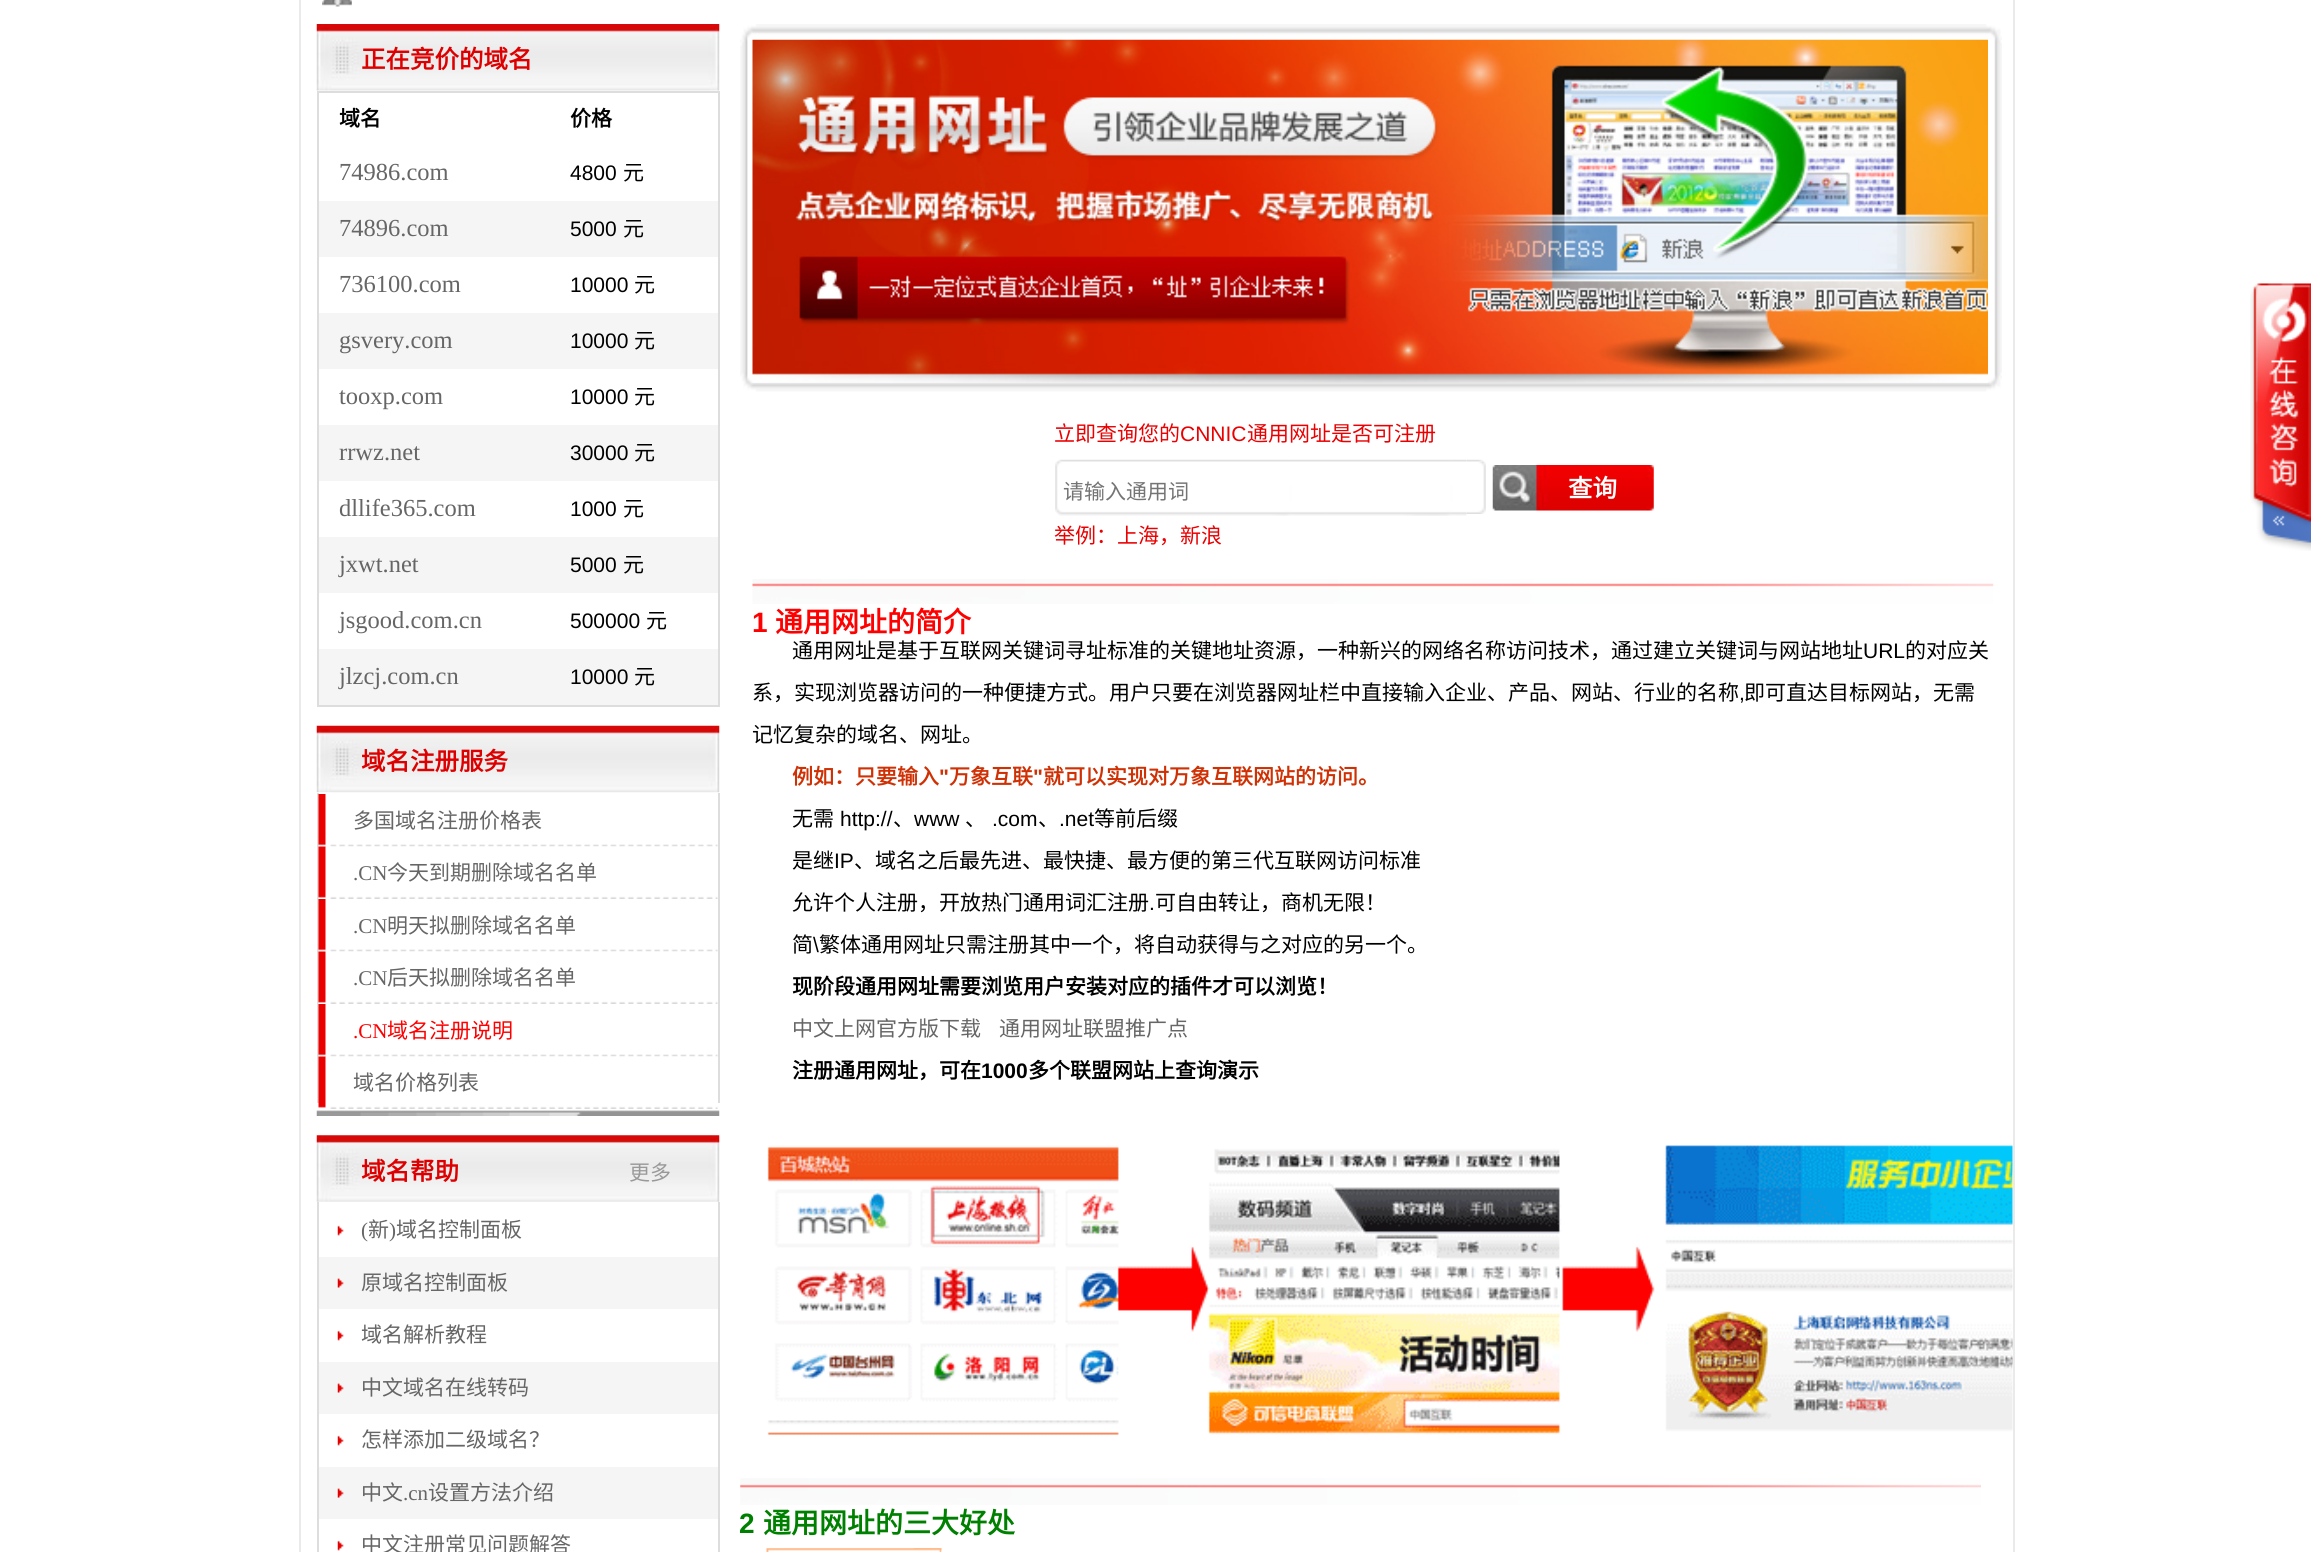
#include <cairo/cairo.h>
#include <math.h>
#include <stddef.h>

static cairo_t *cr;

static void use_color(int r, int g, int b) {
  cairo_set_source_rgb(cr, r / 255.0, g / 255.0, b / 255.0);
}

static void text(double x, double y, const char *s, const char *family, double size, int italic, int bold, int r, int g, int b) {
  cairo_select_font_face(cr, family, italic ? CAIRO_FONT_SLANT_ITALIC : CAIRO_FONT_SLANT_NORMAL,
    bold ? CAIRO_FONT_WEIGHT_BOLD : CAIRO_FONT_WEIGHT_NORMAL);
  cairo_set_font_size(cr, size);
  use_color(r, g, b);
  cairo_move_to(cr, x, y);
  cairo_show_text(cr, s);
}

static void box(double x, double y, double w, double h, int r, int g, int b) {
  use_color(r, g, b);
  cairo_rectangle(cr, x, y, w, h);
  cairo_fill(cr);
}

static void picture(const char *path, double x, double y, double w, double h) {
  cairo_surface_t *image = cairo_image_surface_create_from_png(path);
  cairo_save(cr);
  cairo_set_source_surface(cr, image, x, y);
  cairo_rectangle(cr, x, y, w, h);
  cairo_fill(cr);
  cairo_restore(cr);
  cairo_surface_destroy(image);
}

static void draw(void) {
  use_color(255, 255, 255);
  cairo_paint(cr);
  box(2013, 0, 2, 1552, 234, 234, 234);
  box(299, 0, 2, 1552, 234, 234, 234);
  picture("img_01.png", 322, 0, 30, 7);
  picture("img_02.png", 316, 24, 404, 67);
  box(317, 91, 402, 2, 221, 221, 221);
  box(718, 91, 2, 616, 221, 221, 221);
  box(317, 705, 402, 2, 221, 221, 221);
  box(317, 91, 2, 616, 221, 221, 221);
  box(319, 201, 399, 56, 245, 245, 245);
  box(319, 313, 399, 56, 245, 245, 245);
  box(319, 425, 399, 56, 245, 245, 245);
  box(319, 537, 399, 56, 245, 245, 245);
  box(319, 649, 399, 56, 245, 245, 245);
  picture("img_03.png", 316, 725, 404, 68);
  box(718, 793, 2, 310, 221, 221, 221);
  box(317, 793, 2, 310, 221, 221, 221);
  picture("img_04.png", 318, 794, 400, 53);
  picture("img_05.png", 318, 846, 400, 53);
  picture("img_04.png", 318, 899, 400, 53);
  picture("img_05.png", 318, 951, 400, 53);
  picture("img_04.png", 318, 1004, 400, 53);
  picture("img_06.png", 318, 1056, 400, 53);
  picture("img_07.png", 316, 1110, 404, 6);
  picture("img_08.png", 316, 1135, 404, 67);
  box(718, 1202, 2, 350, 221, 221, 221);
  box(317, 1202, 2, 350, 221, 221, 221);
  picture("img_09.png", 337, 1225, 7, 11);
  box(319, 1257, 399, 52, 245, 245, 245);
  picture("img_10.png", 337, 1278, 7, 10);
  picture("img_09.png", 337, 1330, 7, 11);
  box(319, 1362, 399, 52, 245, 245, 245);
  picture("img_10.png", 337, 1383, 7, 10);
  picture("img_11.png", 337, 1435, 7, 11);
  box(319, 1467, 399, 52, 245, 245, 245);
  picture("img_12.png", 337, 1488, 7, 10);
  picture("img_09.png", 337, 1540, 7, 11);
  picture("img_13.png", 740, 24, 1262, 368);
  picture("img_14.png", 752, 39, 1236, 344);
  picture("img_15.png", 1055, 459, 412, 57);
  picture("img_16.png", 1466, 459, 20, 55);
  picture("img_17.png", 1492, 465, 162, 46);
  picture("img_18.png", 752, 579, 1242, 25);
  picture("img_19.png", 766, 1145, 1247, 291);
  picture("img_20.png", 740, 1478, 1241, 27);
  picture("img_21.png", 766, 1548, 176, 4);
  picture("img_22.png", 913, 1548, 29, 4);
  picture("img_23.png", 2250, 283, 61, 268);
  text(361, 68, "正在竞价的域名", "Noto Sans CJK SC", 24.5, 0, 1, 222, 0, 0);
  text(339, 126, "域名", "Noto Sans CJK SC", 21, 0, 1, 0, 0, 0);
  text(570, 126, "价格", "Noto Sans CJK SC", 21, 0, 1, 0, 0, 0);
  text(339, 180, "74986.com", "Liberation Serif", 24.5, 0, 0, 102, 102, 102);
  text(570, 180, "4800", "Liberation Sans", 21, 0, 0, 0, 0, 0);
  text(623, 180, "元", "Noto Sans CJK SC", 21, 0, 0, 0, 0, 0);
  text(339, 236, "74896.com", "Liberation Serif", 24.5, 0, 0, 102, 102, 102);
  text(570, 236, "5000", "Liberation Sans", 21, 0, 0, 0, 0, 0);
  text(623, 236, "元", "Noto Sans CJK SC", 21, 0, 0, 0, 0, 0);
  text(339, 292, "736100.com", "Liberation Serif", 24.5, 0, 0, 102, 102, 102);
  text(570, 292, "10000", "Liberation Sans", 21, 0, 0, 0, 0, 0);
  text(634, 292, "元", "Noto Sans CJK SC", 21, 0, 0, 0, 0, 0);
  text(339, 348, "gsvery.com", "Liberation Serif", 24.5, 0, 0, 102, 102, 102);
  text(570, 348, "10000", "Liberation Sans", 21, 0, 0, 0, 0, 0);
  text(634, 348, "元", "Noto Sans CJK SC", 21, 0, 0, 0, 0, 0);
  text(339, 404, "tooxp.com", "Liberation Serif", 24.5, 0, 0, 102, 102, 102);
  text(570, 404, "10000", "Liberation Sans", 21, 0, 0, 0, 0, 0);
  text(634, 404, "元", "Noto Sans CJK SC", 21, 0, 0, 0, 0, 0);
  text(339, 460, "rrwz.net", "Liberation Serif", 24.5, 0, 0, 102, 102, 102);
  text(570, 460, "30000", "Liberation Sans", 21, 0, 0, 0, 0, 0);
  text(634, 460, "元", "Noto Sans CJK SC", 21, 0, 0, 0, 0, 0);
  text(339, 516, "dllife365.com", "Liberation Serif", 24.5, 0, 0, 102, 102, 102);
  text(570, 516, "1000", "Liberation Sans", 21, 0, 0, 0, 0, 0);
  text(623, 516, "元", "Noto Sans CJK SC", 21, 0, 0, 0, 0, 0);
  text(339, 572, "jxwt.net", "Liberation Serif", 24.5, 0, 0, 102, 102, 102);
  text(570, 572, "5000", "Liberation Sans", 21, 0, 0, 0, 0, 0);
  text(623, 572, "元", "Noto Sans CJK SC", 21, 0, 0, 0, 0, 0);
  text(339, 628, "jsgood.com.cn", "Liberation Serif", 24.5, 0, 0, 102, 102, 102);
  text(570, 628, "500000", "Liberation Sans", 21, 0, 0, 0, 0, 0);
  text(646, 628, "元", "Noto Sans CJK SC", 21, 0, 0, 0, 0, 0);
  text(339, 684, "jlzcj.com.cn", "Liberation Serif", 24.5, 0, 0, 102, 102, 102);
  text(570, 684, "10000", "Liberation Sans", 21, 0, 0, 0, 0, 0);
  text(634, 684, "元", "Noto Sans CJK SC", 21, 0, 0, 0, 0, 0);
  text(361, 770, "域名注册服务", "Noto Sans CJK SC", 24.5, 0, 1, 222, 0, 0);
  text(353, 828, "多国域名注册价格表", "Noto Sans CJK SC", 21, 0, 0, 102, 102, 102);
  text(353, 880, ".CN", "Liberation Serif", 21, 0, 0, 102, 102, 102);
  text(387, 880, "今天到期删除域名名单", "Noto Sans CJK SC", 21, 0, 0, 102, 102, 102);
  text(353, 933, ".CN", "Liberation Serif", 21, 0, 0, 102, 102, 102);
  text(387, 933, "明天拟删除域名名单", "Noto Sans CJK SC", 21, 0, 0, 102, 102, 102);
  text(353, 985, ".CN", "Liberation Serif", 21, 0, 0, 102, 102, 102);
  text(387, 985, "后天拟删除域名名单", "Noto Sans CJK SC", 21, 0, 0, 102, 102, 102);
  text(353, 1038, ".CN", "Liberation Serif", 21, 0, 0, 255, 0, 0);
  text(387, 1038, "域名注册说明", "Noto Sans CJK SC", 21, 0, 0, 255, 0, 0);
  text(353, 1090, "域名价格列表", "Noto Sans CJK SC", 21, 0, 0, 102, 102, 102);
  text(361, 1180, "域名帮助", "Noto Sans CJK SC", 24.5, 0, 1, 222, 0, 0);
  text(629, 1180, "更多", "Noto Sans CJK SC", 21, 0, 0, 153, 153, 153);
  text(361, 1237, "(", "Liberation Serif", 21, 0, 0, 102, 102, 102);
  text(368, 1237, "新", "Noto Sans CJK SC", 21, 0, 0, 102, 102, 102);
  text(389, 1237, ")", "Liberation Serif", 21, 0, 0, 102, 102, 102);
  text(396, 1237, "域名控制面板", "Noto Sans CJK SC", 21, 0, 0, 102, 102, 102);
  text(361, 1290, "原域名控制面板", "Noto Sans CJK SC", 21, 0, 0, 102, 102, 102);
  text(361, 1342, "域名解析教程", "Noto Sans CJK SC", 21, 0, 0, 102, 102, 102);
  text(361, 1395, "中文域名在线转码", "Noto Sans CJK SC", 21, 0, 0, 102, 102, 102);
  text(361, 1447, "怎样添加二级域名？", "Noto Sans CJK SC", 21, 0, 0, 102, 102, 102);
  text(361, 1500, "中文", "Noto Sans CJK SC", 21, 0, 0, 102, 102, 102);
  text(403, 1500, ".cn", "Liberation Serif", 21, 0, 0, 102, 102, 102);
  text(428, 1500, "设置方法介绍", "Noto Sans CJK SC", 21, 0, 0, 102, 102, 102);
  text(361, 1552, "中文注册常见问题解答", "Noto Sans CJK SC", 21, 0, 0, 102, 102, 102);
  text(1054, 441, "立即查询您的", "Noto Sans CJK SC", 21, 0, 0, 234, 0, 1);
  text(1180, 441, "CNNIC", "Liberation Sans", 21, 0, 0, 234, 0, 1);
  text(1247, 441, "通用网址是否可注册", "Noto Sans CJK SC", 21, 0, 0, 234, 0, 1);
  text(1063, 499, "请输入通用词", "Noto Sans CJK SC", 21, 0, 0, 116, 116, 116);
  text(1568, 497, "查询", "Noto Sans CJK SC", 24.5, 0, 1, 255, 255, 255);
  text(1054, 543, "举例：上海，新浪", "Noto Sans CJK SC", 21, 0, 0, 234, 0, 1);
  text(752, 632, "1", "Liberation Sans", 28, 0, 1, 255, 0, 0);
  text(775, 632, "通用网址的简介", "Noto Sans CJK SC", 28, 0, 1, 255, 0, 0);
  text(792, 658, "通用网址是基于互联网关键词寻址标准的关键地址资源，一种新兴的网络名称访问技术，通过建立关键词与网站地址", "Noto Sans CJK SC", 21, 0, 0, 0, 0, 0);
  text(1863, 658, "URL", "Liberation Sans", 21, 0, 0, 0, 0, 0);
  text(1905, 658, "的对应关", "Noto Sans CJK SC", 21, 0, 0, 0, 0, 0);
  text(752, 700, "系，实现浏览器访问的一种便捷方式。用户只要在浏览器网址栏中直接输入企业、产品、网站、行业的名称", "Noto Sans CJK SC", 21, 0, 0, 0, 0, 0);
  text(1739, 700, ",", "Liberation Sans", 21, 0, 0, 0, 0, 0);
  text(1744, 700, "即可直达目标网站，无需", "Noto Sans CJK SC", 21, 0, 0, 0, 0, 0);
  text(752, 742, "记忆复杂的域名、网址。", "Noto Sans CJK SC", 21, 0, 0, 0, 0, 0);
  text(792, 784, "例如：只要输入", "Noto Sans CJK SC", 21, 0, 1, 207, 49, 5);
  text(939, 784, "\"", "Liberation Sans", 21, 0, 1, 207, 49, 5);
  text(949, 784, "万象互联", "Noto Sans CJK SC", 21, 0, 1, 207, 49, 5);
  text(1033, 784, "\"", "Liberation Sans", 21, 0, 1, 207, 49, 5);
  text(1043, 784, "就可以实现对万象互联网站的访问。", "Noto Sans CJK SC", 21, 0, 1, 207, 49, 5);
  text(792, 826, "无需", "Noto Sans CJK SC", 21, 0, 0, 0, 0, 0);
  text(840, 826, "http://", "Liberation Sans", 21, 0, 0, 0, 0, 0);
  text(893, 826, "、", "Noto Sans CJK SC", 21, 0, 0, 0, 0, 0);
  text(914, 826, "www", "Liberation Sans", 21, 0, 0, 0, 0, 0);
  text(965, 826, "、", "Noto Sans CJK SC", 21, 0, 0, 0, 0, 0);
  text(992, 826, ".com", "Liberation Sans", 21, 0, 0, 0, 0, 0);
  text(1038, 826, "、", "Noto Sans CJK SC", 21, 0, 0, 0, 0, 0);
  text(1059, 826, ".net", "Liberation Sans", 21, 0, 0, 0, 0, 0);
  text(1094, 826, "等前后缀", "Noto Sans CJK SC", 21, 0, 0, 0, 0, 0);
  text(792, 868, "是继", "Noto Sans CJK SC", 21, 0, 0, 0, 0, 0);
  text(834, 868, "IP", "Liberation Sans", 21, 0, 0, 0, 0, 0);
  text(854, 868, "、域名之后最先进、最快捷、最方便的第三代互联网访问标准", "Noto Sans CJK SC", 21, 0, 0, 0, 0, 0);
  text(792, 910, "允许个人注册，开放热门通用词汇注册", "Noto Sans CJK SC", 21, 0, 0, 0, 0, 0);
  text(1149, 910, ".", "Liberation Sans", 21, 0, 0, 0, 0, 0);
  text(1155, 910, "可自由转让，商机无限！", "Noto Sans CJK SC", 21, 0, 0, 0, 0, 0);
  text(792, 952, "简", "Noto Sans CJK SC", 21, 0, 0, 0, 0, 0);
  text(813, 952, "\\", "Liberation Sans", 21, 0, 0, 0, 0, 0);
  text(819, 952, "繁体通用网址只需注册其中一个，将自动获得与之对应的另一个。", "Noto Sans CJK SC", 21, 0, 0, 0, 0, 0);
  text(792, 994, "现阶段通用网址需要浏览用户安装对应的插件才可以浏览！", "Noto Sans CJK SC", 21, 0, 1, 0, 0, 0);
  text(792, 1036, "中文上网官方版下载", "Noto Sans CJK SC", 21, 0, 0, 102, 102, 102);
  text(999, 1036, "通用网址联盟推广点", "Noto Sans CJK SC", 21, 0, 0, 102, 102, 102);
  text(792, 1078, "注册通用网址，可在", "Noto Sans CJK SC", 21, 0, 1, 0, 0, 0);
  text(981, 1078, "1000", "Liberation Sans", 21, 0, 1, 0, 0, 0);
  text(1028, 1078, "多个联盟网站上查询演示", "Noto Sans CJK SC", 21, 0, 1, 0, 0, 0);
  text(739, 1533, "2", "Liberation Sans", 28, 0, 1, 0, 128, 0);
  text(763, 1533, "通用网址的三大好处", "Noto Sans CJK SC", 28, 0, 1, 0, 128, 0);
}

int main(void) {
  cairo_surface_t *surface = cairo_image_surface_create(CAIRO_FORMAT_RGB24, 2311, 1552);
  cr = cairo_create(surface);
  cairo_font_options_t *options = cairo_font_options_create();
  cairo_font_options_set_hint_metrics(options, CAIRO_HINT_METRICS_OFF);
  cairo_font_options_set_hint_style(options, CAIRO_HINT_STYLE_NONE);
  cairo_set_font_options(cr, options);
  cairo_set_miter_limit(cr, 4);
  draw();
  cairo_surface_write_to_png(surface, "out.png");
  cairo_font_options_destroy(options);
  cairo_destroy(cr);
  cairo_surface_destroy(surface);
  return 0;
}
